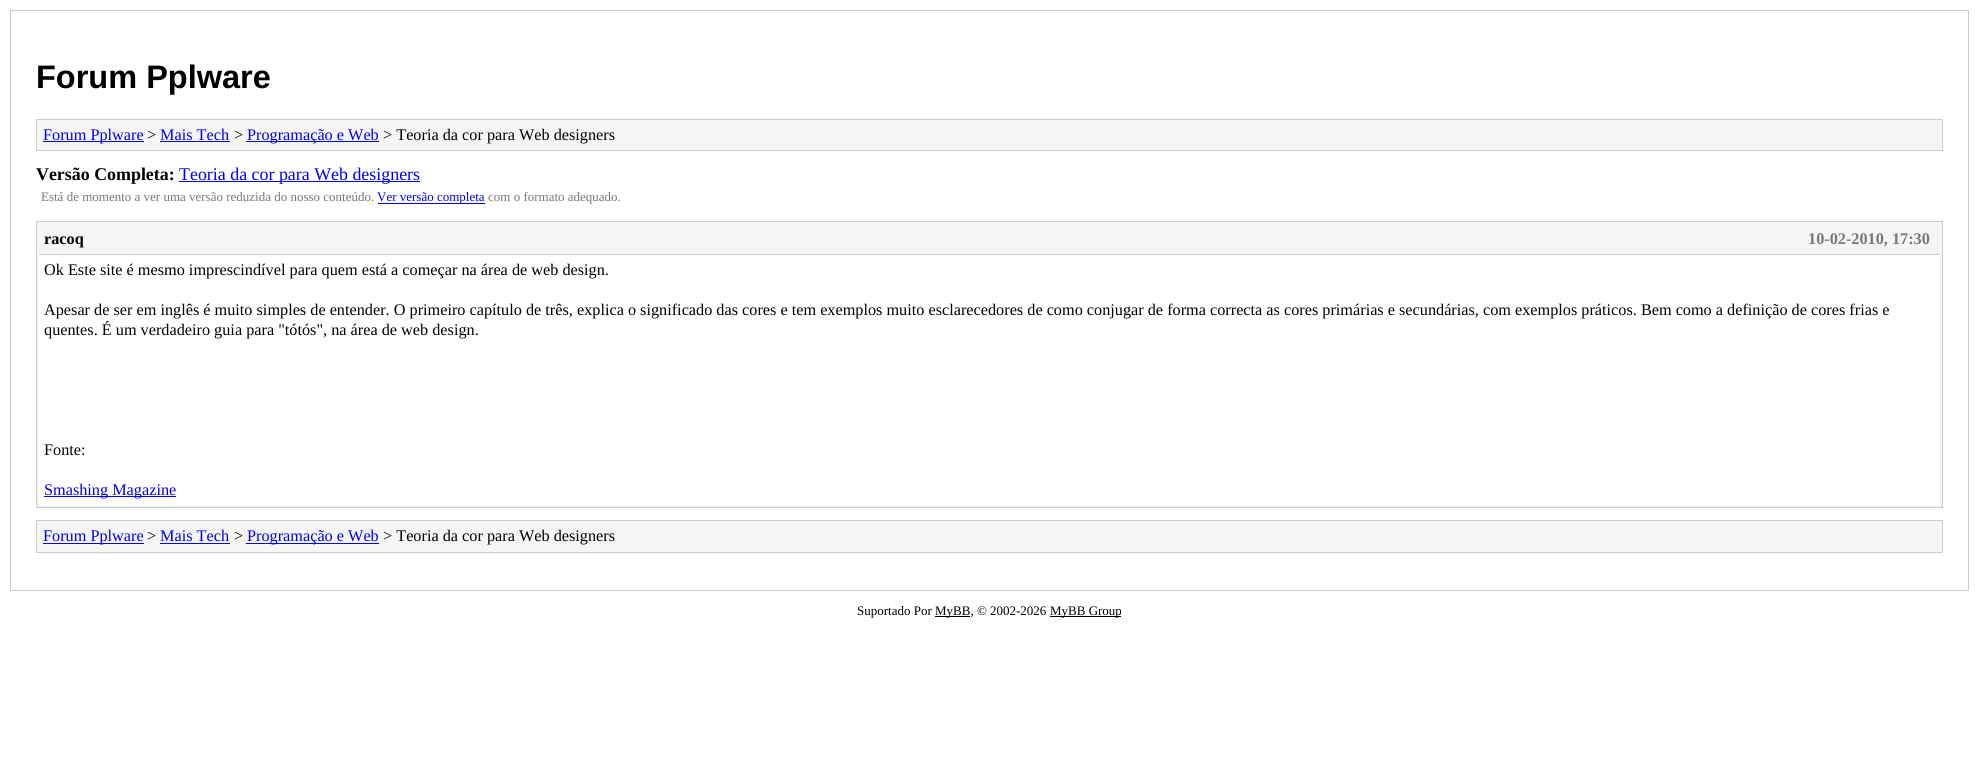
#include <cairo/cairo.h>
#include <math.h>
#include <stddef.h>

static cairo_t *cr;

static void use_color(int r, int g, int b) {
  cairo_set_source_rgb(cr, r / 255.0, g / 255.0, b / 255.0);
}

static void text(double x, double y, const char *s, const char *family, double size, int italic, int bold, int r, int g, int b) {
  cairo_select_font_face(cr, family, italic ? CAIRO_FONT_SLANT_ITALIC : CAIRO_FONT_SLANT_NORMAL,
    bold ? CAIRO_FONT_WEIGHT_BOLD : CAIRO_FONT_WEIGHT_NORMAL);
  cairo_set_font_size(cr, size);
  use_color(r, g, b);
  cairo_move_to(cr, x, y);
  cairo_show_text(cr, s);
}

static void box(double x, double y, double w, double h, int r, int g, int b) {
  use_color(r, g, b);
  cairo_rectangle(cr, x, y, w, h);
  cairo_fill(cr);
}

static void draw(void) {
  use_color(255, 255, 255);
  cairo_paint(cr);
  cairo_rectangle(cr, 10.5, 10.5, 1958, 580);
  use_color(204, 204, 204);
  cairo_set_line_width(cr, 1);
  cairo_stroke(cr);
  use_color(245, 245, 244);
  cairo_rectangle(cr, 36.5, 119.5, 1906, 31);
  cairo_fill_preserve(cr);
  use_color(204, 204, 204);
  cairo_stroke(cr);
  box(43, 141, 101, 1, 0, 0, 238);
  box(160, 141, 70, 1, 0, 0, 238);
  box(246, 141, 133, 1, 0, 0, 238);
  box(179, 181, 241, 1, 0, 0, 238);
  box(378, 203, 107, 1, 0, 0, 238);
  use_color(245, 245, 244);
  cairo_rectangle(cr, 36.5, 221.5, 1906, 286);
  cairo_fill_preserve(cr);
  use_color(204, 204, 204);
  cairo_stroke(cr);
  box(39, 254, 1901, 1, 204, 204, 204);
  box(39, 255, 1901, 250, 255, 255, 255);
  box(44, 496, 132, 1, 0, 0, 238);
  use_color(245, 245, 244);
  cairo_rectangle(cr, 36.5, 520.5, 1906, 32);
  cairo_fill_preserve(cr);
  use_color(204, 204, 204);
  cairo_stroke(cr);
  box(43, 543, 101, 1, 0, 0, 238);
  box(160, 543, 70, 1, 0, 0, 238);
  box(246, 543, 133, 1, 0, 0, 238);
  box(935, 616, 35, 1, 0, 0, 0);
  box(1050, 616, 71, 1, 0, 0, 0);
  text(36, 88, "Forum Pplware", "Liberation Sans", 32.5, 0, 1, 0, 0, 0);
  text(43, 140, "Forum Pplware", "Liberation Serif", 16.25, 0, 0, 0, 0, 238);
  text(147, 140, ">", "Liberation Serif", 16.25, 0, 0, 0, 0, 0);
  text(160, 140, "Mais Tech", "Liberation Serif", 16.25, 0, 0, 0, 0, 238);
  text(234, 140, ">", "Liberation Serif", 16.25, 0, 0, 0, 0, 0);
  text(247, 140, "Programação e Web", "Liberation Serif", 16.25, 0, 0, 0, 0, 238);
  text(383, 140, "> Teoria da cor para Web designers", "Liberation Serif", 16.25, 0, 0, 0, 0, 0);
  text(36, 180, "Versão Completa:", "Liberation Serif", 17.9, 0, 1, 0, 0, 0);
  text(179, 180, "Teoria da cor para Web designers", "Liberation Serif", 17.9, 0, 0, 0, 0, 238);
  text(41, 201, "Está de momento a ver uma versão reduzida do nosso conteúdo.", "Liberation Serif", 13, 0, 0, 119, 119, 119);
  text(377, 201, "Ver versão completa", "Liberation Serif", 13, 0, 0, 0, 0, 238);
  text(488, 201, "com o formato adequado.", "Liberation Serif", 13, 0, 0, 119, 119, 119);
  text(44, 244, "racoq", "Liberation Serif", 16.25, 0, 1, 0, 0, 0);
  text(1808, 244, "10-02-2010, 17:30", "Liberation Serif", 16.25, 0, 1, 119, 119, 119);
  text(44, 275, "Ok Este site é mesmo imprescindível para quem está a começar na área de web design.", "Liberation Serif", 16.25, 0, 0, 0, 0, 0);
  text(44, 315, "Apesar de ser em inglês é muito simples de entender. O primeiro capítulo de três, explica o significado das cores e tem exemplos muito esclarecedores de como conjugar de forma correcta as cores primárias e secundárias, com exemplos práticos. Bem como a definição de cores frias e", "Liberation Serif", 16.25, 0, 0, 0, 0, 0);
  text(44, 335, "quentes. É um verdadeiro guia para \"tótós\", na área de web design.", "Liberation Serif", 16.25, 0, 0, 0, 0, 0);
  text(44, 455, "Fonte:", "Liberation Serif", 16.25, 0, 0, 0, 0, 0);
  text(44, 495, "Smashing Magazine", "Liberation Serif", 16.25, 0, 0, 0, 0, 238);
  text(43, 541, "Forum Pplware", "Liberation Serif", 16.25, 0, 0, 0, 0, 238);
  text(147, 541, ">", "Liberation Serif", 16.25, 0, 0, 0, 0, 0);
  text(160, 541, "Mais Tech", "Liberation Serif", 16.25, 0, 0, 0, 0, 238);
  text(234, 541, ">", "Liberation Serif", 16.25, 0, 0, 0, 0, 0);
  text(247, 541, "Programação e Web", "Liberation Serif", 16.25, 0, 0, 0, 0, 238);
  text(383, 541, "> Teoria da cor para Web designers", "Liberation Serif", 16.25, 0, 0, 0, 0, 0);
  text(857, 615, "Suportado Por", "Liberation Serif", 13, 0, 0, 0, 0, 0);
  text(935, 615, "MyBB, © 2002-2026", "Liberation Serif", 13, 0, 0, 0, 0, 0);
  text(1050, 615, "MyBB Group", "Liberation Serif", 13, 0, 0, 0, 0, 0);
}

int main(void) {
  cairo_surface_t *surface = cairo_image_surface_create(CAIRO_FORMAT_RGB24, 1978, 765);
  cr = cairo_create(surface);
  cairo_font_options_t *options = cairo_font_options_create();
  cairo_font_options_set_hint_metrics(options, CAIRO_HINT_METRICS_OFF);
  cairo_font_options_set_hint_style(options, CAIRO_HINT_STYLE_NONE);
  cairo_set_font_options(cr, options);
  cairo_set_miter_limit(cr, 4);
  draw();
  cairo_surface_write_to_png(surface, "out.png");
  cairo_font_options_destroy(options);
  cairo_destroy(cr);
  cairo_surface_destroy(surface);
  return 0;
}
